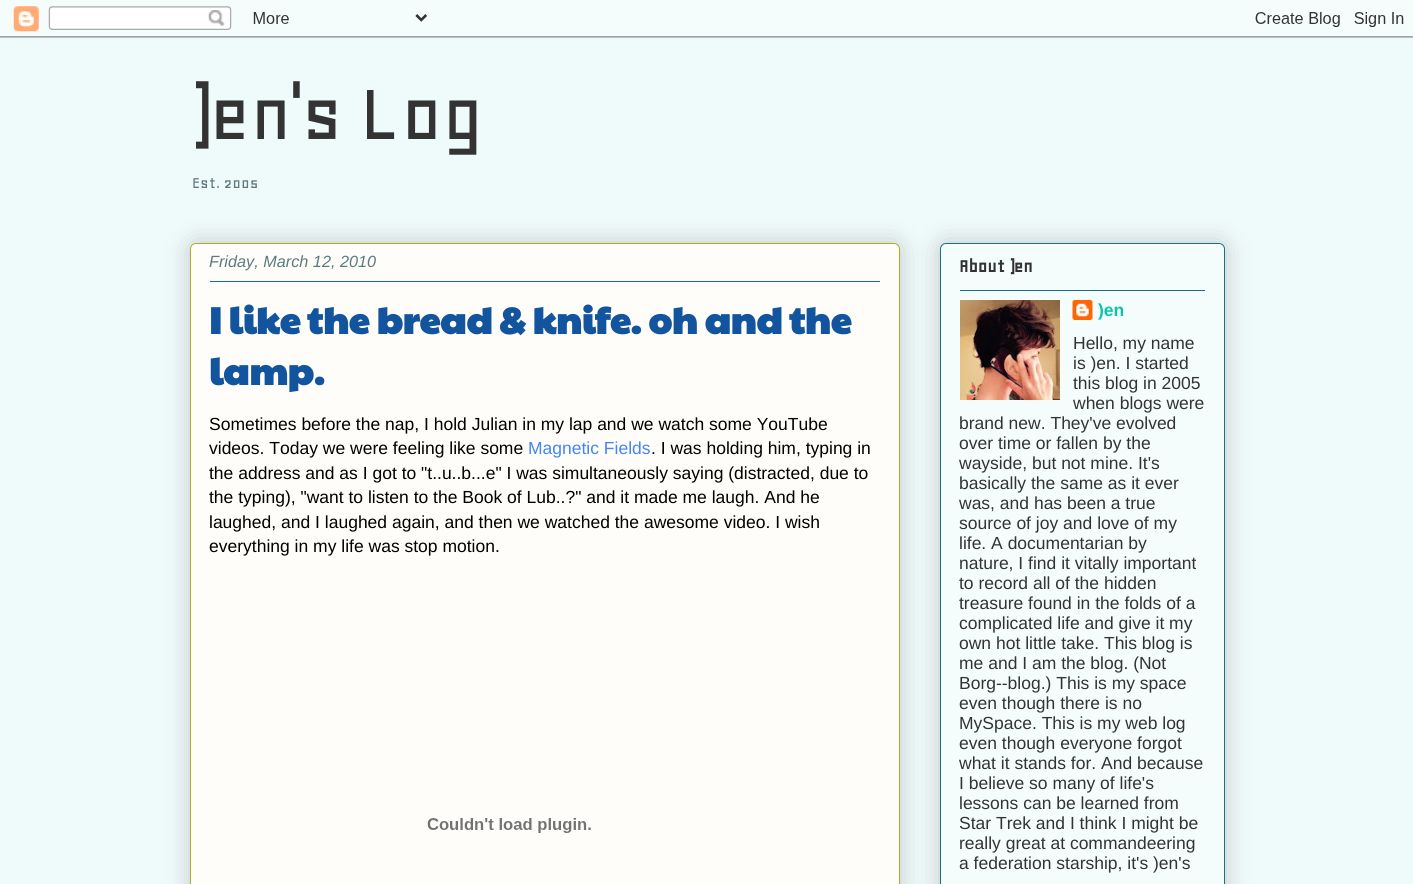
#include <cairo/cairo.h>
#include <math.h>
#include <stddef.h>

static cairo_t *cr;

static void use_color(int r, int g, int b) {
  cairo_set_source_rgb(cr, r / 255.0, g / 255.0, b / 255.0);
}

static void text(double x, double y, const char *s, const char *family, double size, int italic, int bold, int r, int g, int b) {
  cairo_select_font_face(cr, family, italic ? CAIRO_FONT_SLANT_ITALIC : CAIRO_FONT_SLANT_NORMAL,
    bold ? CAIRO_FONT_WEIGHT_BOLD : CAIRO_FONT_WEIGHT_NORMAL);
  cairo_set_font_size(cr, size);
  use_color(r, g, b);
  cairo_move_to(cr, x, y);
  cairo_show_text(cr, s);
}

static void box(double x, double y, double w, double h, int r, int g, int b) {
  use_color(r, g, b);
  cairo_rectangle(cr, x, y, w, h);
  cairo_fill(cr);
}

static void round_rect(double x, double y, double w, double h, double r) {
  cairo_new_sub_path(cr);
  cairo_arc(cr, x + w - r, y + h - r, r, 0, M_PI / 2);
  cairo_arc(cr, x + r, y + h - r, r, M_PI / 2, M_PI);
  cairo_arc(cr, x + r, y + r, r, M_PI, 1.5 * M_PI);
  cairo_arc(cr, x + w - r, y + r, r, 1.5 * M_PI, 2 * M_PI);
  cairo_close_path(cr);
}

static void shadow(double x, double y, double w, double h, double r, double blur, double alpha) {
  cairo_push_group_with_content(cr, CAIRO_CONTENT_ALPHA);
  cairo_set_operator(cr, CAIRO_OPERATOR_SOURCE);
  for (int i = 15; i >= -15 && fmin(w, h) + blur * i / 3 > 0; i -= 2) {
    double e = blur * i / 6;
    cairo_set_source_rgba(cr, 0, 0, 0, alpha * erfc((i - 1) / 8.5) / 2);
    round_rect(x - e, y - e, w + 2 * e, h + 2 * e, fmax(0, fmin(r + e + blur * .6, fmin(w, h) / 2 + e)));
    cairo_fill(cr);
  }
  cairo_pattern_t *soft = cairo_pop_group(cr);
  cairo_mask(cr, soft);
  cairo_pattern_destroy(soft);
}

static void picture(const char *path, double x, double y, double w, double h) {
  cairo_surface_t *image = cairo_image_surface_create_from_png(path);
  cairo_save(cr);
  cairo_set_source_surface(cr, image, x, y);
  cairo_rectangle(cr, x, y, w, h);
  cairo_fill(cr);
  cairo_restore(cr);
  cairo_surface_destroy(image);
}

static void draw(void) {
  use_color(239, 250, 250);
  cairo_paint(cr);
  picture("img_01.png", 0, 0, 1413, 38);
  use_color(0, 0, 0);
  shadow(190, 243, 710, 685, 6, 12.5, 0.2);
  use_color(254, 253, 250);
  round_rect(190.5, 243.5, 709, 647, 5.5);
  cairo_fill_preserve(cr);
  use_color(170, 177, 35);
  cairo_set_line_width(cr, 1);
  cairo_stroke(cr);
  box(210, 281, 670, 1, 27, 110, 135);
  picture("img_02.png", 427, 818, 164, 15);
  use_color(0, 0, 0);
  shadow(940, 243, 285, 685, 6, 12.5, 0.2);
  use_color(244, 253, 252);
  round_rect(940.5, 243.5, 284, 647, 5.5);
  cairo_fill_preserve(cr);
  use_color(27, 110, 135);
  cairo_stroke(cr);
  box(960, 290, 245, 1, 27, 110, 135);
  picture("img_03.png", 960, 300, 100, 100);
  picture("img_04.png", 1072, 300, 21, 20);
  text(189, 139, ")en's Log", "Geo", 87.5, 0, 0, 51, 51, 51);
  text(192, 188, "Est. 2005", "Geo", 17.5, 0, 0, 92, 122, 126);
  text(209, 267, "Friday, March 12, 2010", "Liberation Sans", 16.25, 1, 0, 92, 122, 126);
  text(209, 334, "I like the bread & knife. oh and the", "Paytone One", 37.5, 0, 1, 19, 84, 159);
  text(209, 385, "lamp.", "Paytone One", 37.5, 0, 1, 19, 84, 159);
  text(209, 430, "Sometimes before the nap, I hold Julian in my lap and we watch some YouTube", "Liberation Sans", 17.5, 0, 0, 0, 0, 0);
  text(209, 454, "videos. Today we were feeling like some", "Liberation Sans", 17.5, 0, 0, 0, 0, 0);
  text(528, 454, "Magnetic Fields", "Liberation Sans", 17.5, 0, 0, 66, 133, 244);
  text(651, 454, ". I was holding him, typing in", "Liberation Sans", 17.5, 0, 0, 0, 0, 0);
  text(209, 479, "the address and as I got to \"t..u..b...e\" I was simultaneously saying (distracted, due to", "Liberation Sans", 17.5, 0, 0, 0, 0, 0);
  text(209, 503, "the typing), \"want to listen to the Book of Lub..?\" and it made me laugh. And he", "Liberation Sans", 17.5, 0, 0, 0, 0, 0);
  text(209, 528, "laughed, and I laughed again, and then we watched the awesome video. I wish", "Liberation Sans", 17.5, 0, 0, 0, 0, 0);
  text(209, 552, "everything in my life was stop motion.", "Liberation Sans", 17.5, 0, 0, 0, 0, 0);
  text(959, 272, "About )en", "Geo", 20, 0, 1, 51, 51, 51);
  text(1098, 316, ")en", "Liberation Sans", 17.5, 0, 1, 12, 196, 171);
  text(1073, 349, "Hello, my name", "Liberation Sans", 17.5, 0, 0, 51, 51, 51);
  text(1073, 369, "is )en. I started", "Liberation Sans", 17.5, 0, 0, 51, 51, 51);
  text(1073, 389, "this blog in 2005", "Liberation Sans", 17.5, 0, 0, 51, 51, 51);
  text(1073, 409, "when blogs were", "Liberation Sans", 17.5, 0, 0, 51, 51, 51);
  text(959, 429, "brand new. They've evolved", "Liberation Sans", 17.5, 0, 0, 51, 51, 51);
  text(959, 449, "over time or fallen by the", "Liberation Sans", 17.5, 0, 0, 51, 51, 51);
  text(959, 469, "wayside, but not mine. It's", "Liberation Sans", 17.5, 0, 0, 51, 51, 51);
  text(959, 489, "basically the same as it ever", "Liberation Sans", 17.5, 0, 0, 51, 51, 51);
  text(959, 509, "was, and has been a true", "Liberation Sans", 17.5, 0, 0, 51, 51, 51);
  text(959, 529, "source of joy and love of my", "Liberation Sans", 17.5, 0, 0, 51, 51, 51);
  text(959, 549, "life. A documentarian by", "Liberation Sans", 17.5, 0, 0, 51, 51, 51);
  text(959, 569, "nature, I find it vitally important", "Liberation Sans", 17.5, 0, 0, 51, 51, 51);
  text(959, 589, "to record all of the hidden", "Liberation Sans", 17.5, 0, 0, 51, 51, 51);
  text(959, 609, "treasure found in the folds of a", "Liberation Sans", 17.5, 0, 0, 51, 51, 51);
  text(959, 629, "complicated life and give it my", "Liberation Sans", 17.5, 0, 0, 51, 51, 51);
  text(959, 649, "own hot little take. This blog is", "Liberation Sans", 17.5, 0, 0, 51, 51, 51);
  text(959, 669, "me and I am the blog. (Not", "Liberation Sans", 17.5, 0, 0, 51, 51, 51);
  text(959, 689, "Borg--blog.) This is my space", "Liberation Sans", 17.5, 0, 0, 51, 51, 51);
  text(959, 709, "even though there is no", "Liberation Sans", 17.5, 0, 0, 51, 51, 51);
  text(959, 729, "MySpace. This is my web log", "Liberation Sans", 17.5, 0, 0, 51, 51, 51);
  text(959, 749, "even though everyone forgot", "Liberation Sans", 17.5, 0, 0, 51, 51, 51);
  text(959, 769, "what it stands for. And because", "Liberation Sans", 17.5, 0, 0, 51, 51, 51);
  text(959, 789, "I believe so many of life's", "Liberation Sans", 17.5, 0, 0, 51, 51, 51);
  text(959, 809, "lessons can be learned from", "Liberation Sans", 17.5, 0, 0, 51, 51, 51);
  text(959, 829, "Star Trek and I think I might be", "Liberation Sans", 17.5, 0, 0, 51, 51, 51);
  text(959, 849, "really great at commandeering", "Liberation Sans", 17.5, 0, 0, 51, 51, 51);
  text(959, 869, "a federation starship, it's )en's", "Liberation Sans", 17.5, 0, 0, 51, 51, 51);
}

int main(void) {
  cairo_surface_t *surface = cairo_image_surface_create(CAIRO_FORMAT_RGB24, 1413, 884);
  cr = cairo_create(surface);
  cairo_font_options_t *options = cairo_font_options_create();
  cairo_font_options_set_hint_metrics(options, CAIRO_HINT_METRICS_OFF);
  cairo_font_options_set_hint_style(options, CAIRO_HINT_STYLE_NONE);
  cairo_set_font_options(cr, options);
  cairo_set_miter_limit(cr, 4);
  draw();
  cairo_surface_write_to_png(surface, "out.png");
  cairo_font_options_destroy(options);
  cairo_destroy(cr);
  cairo_surface_destroy(surface);
  return 0;
}
